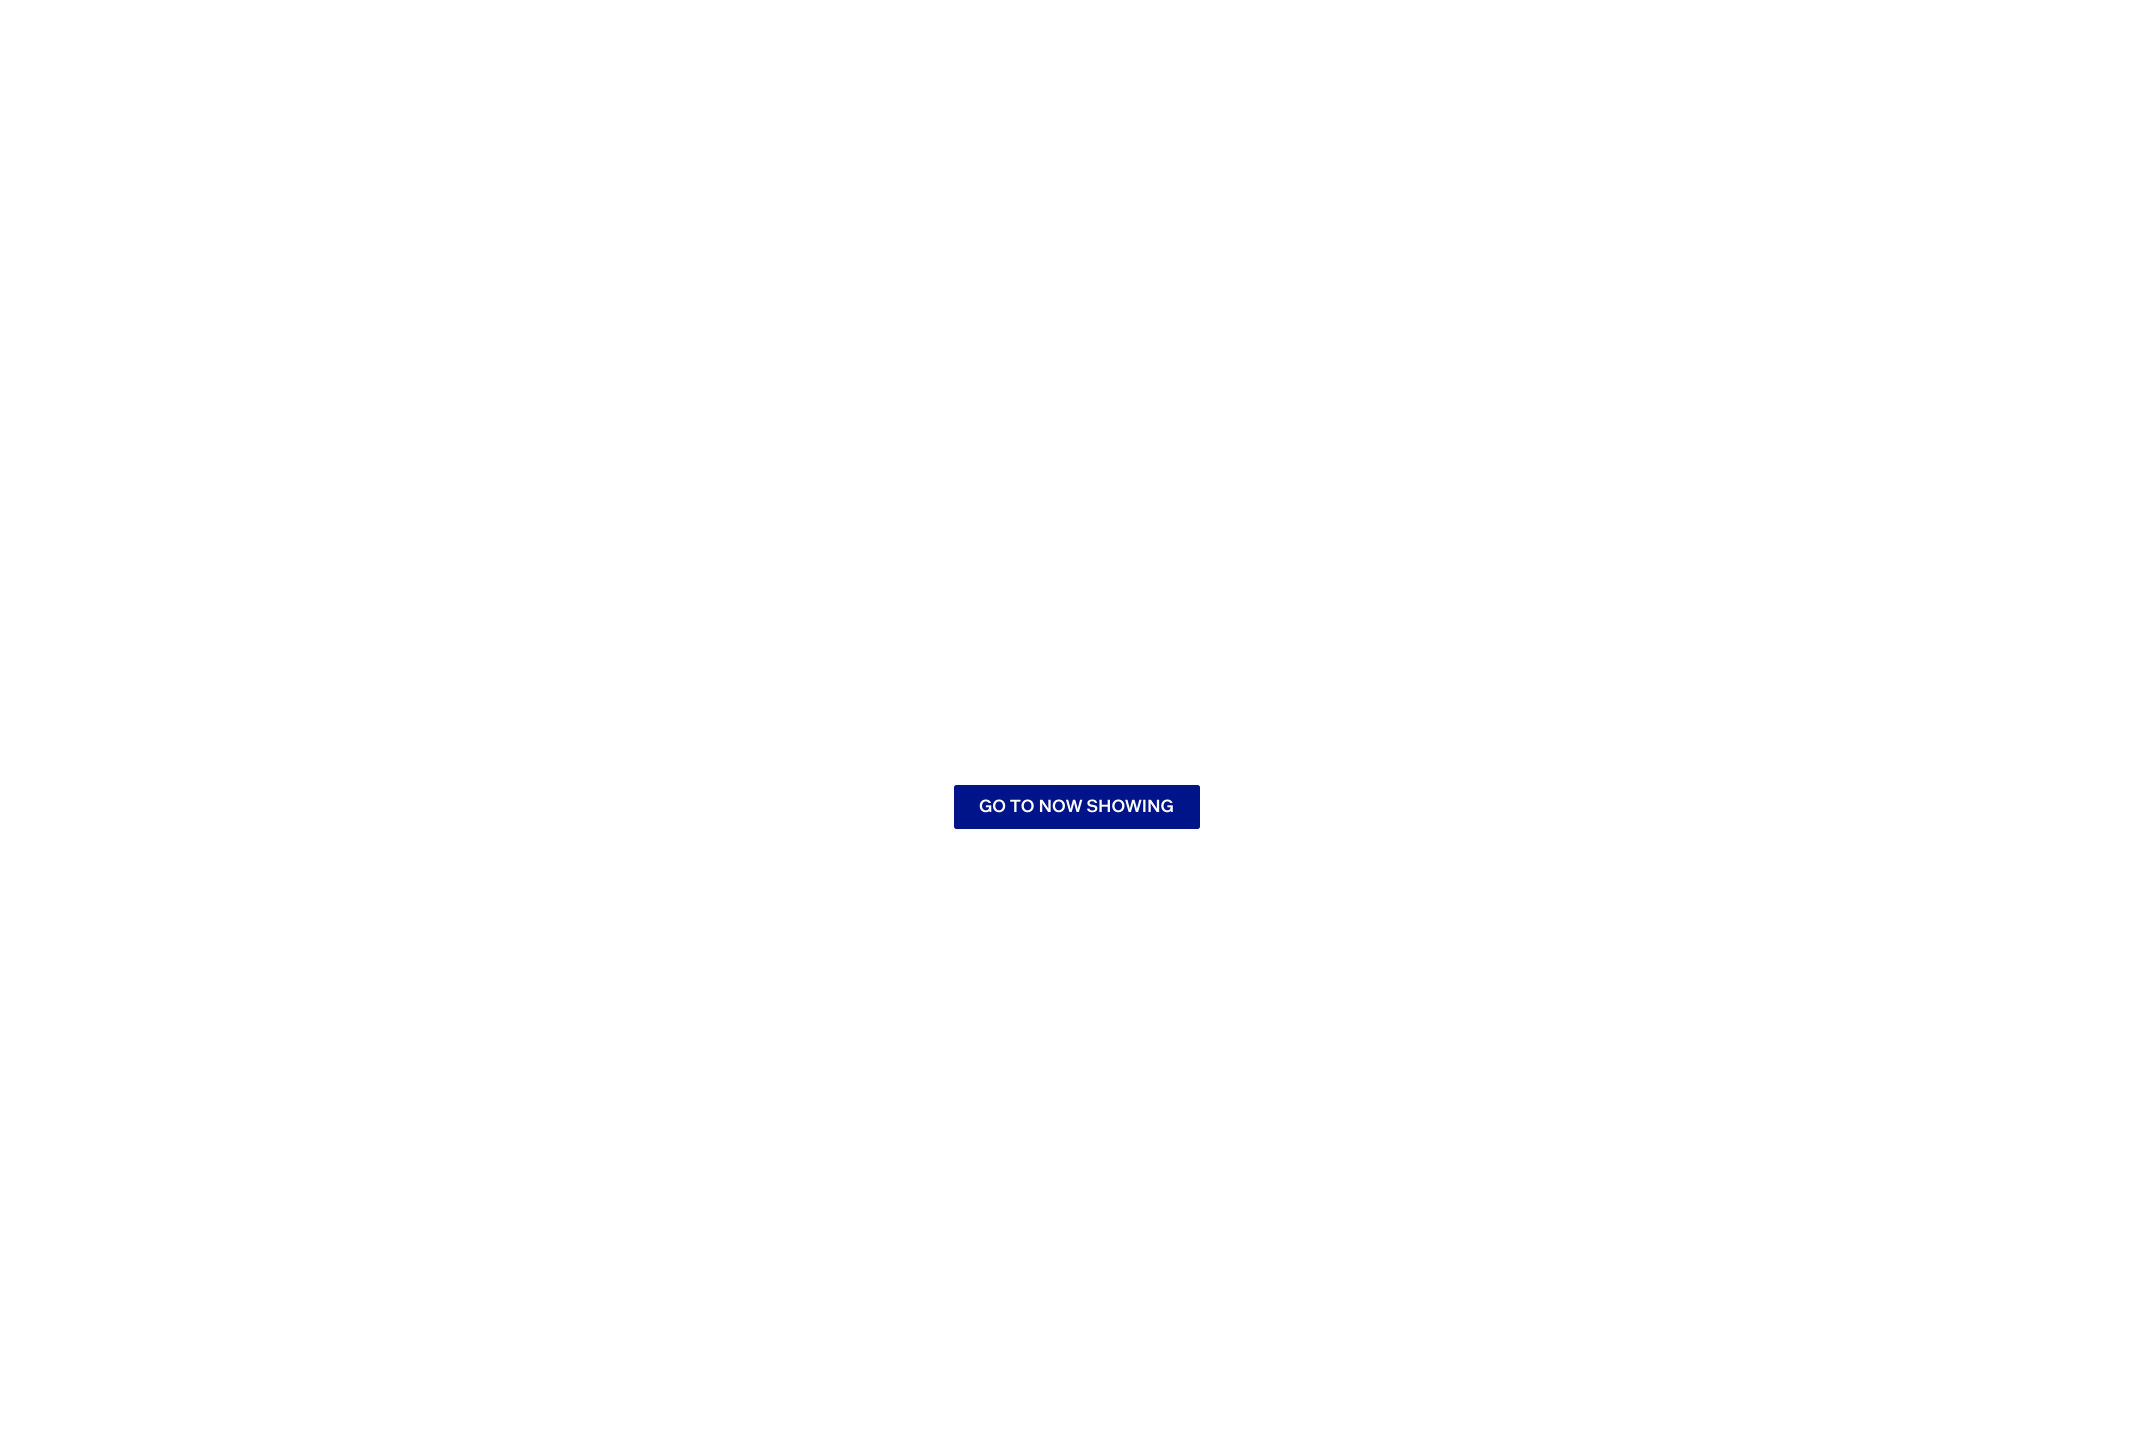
#include <cairo/cairo.h>
#include <math.h>
#include <stddef.h>

static cairo_t *cr;

static void use_color(int r, int g, int b) {
  cairo_set_source_rgb(cr, r / 255.0, g / 255.0, b / 255.0);
}

static void text(double x, double y, const char *s, const char *family, double size, int italic, int bold, int r, int g, int b) {
  cairo_select_font_face(cr, family, italic ? CAIRO_FONT_SLANT_ITALIC : CAIRO_FONT_SLANT_NORMAL,
    bold ? CAIRO_FONT_WEIGHT_BOLD : CAIRO_FONT_WEIGHT_NORMAL);
  cairo_set_font_size(cr, size);
  use_color(r, g, b);
  cairo_move_to(cr, x, y);
  cairo_show_text(cr, s);
}

static void round_rect(double x, double y, double w, double h, double r) {
  cairo_new_sub_path(cr);
  cairo_arc(cr, x + w - r, y + h - r, r, 0, M_PI / 2);
  cairo_arc(cr, x + r, y + h - r, r, M_PI / 2, M_PI);
  cairo_arc(cr, x + r, y + r, r, M_PI, 1.5 * M_PI);
  cairo_arc(cr, x + w - r, y + r, r, 1.5 * M_PI, 2 * M_PI);
  cairo_close_path(cr);
}

static void draw(void) {
  use_color(255, 255, 255);
  cairo_paint(cr);
  use_color(0, 20, 137);
  round_rect(954.5, 785.5, 245, 43, 2);
  cairo_fill_preserve(cr);
  cairo_set_line_width(cr, 1);
  cairo_stroke(cr);
  text(979, 812, "GO TO NOW SHOWING", "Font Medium", 17.5, 0, 0, 255, 255, 255);
}

int main(void) {
  cairo_surface_t *surface = cairo_image_surface_create(CAIRO_FORMAT_RGB24, 2153, 1442);
  cr = cairo_create(surface);
  cairo_font_options_t *options = cairo_font_options_create();
  cairo_font_options_set_hint_metrics(options, CAIRO_HINT_METRICS_OFF);
  cairo_font_options_set_hint_style(options, CAIRO_HINT_STYLE_NONE);
  cairo_set_font_options(cr, options);
  cairo_set_miter_limit(cr, 4);
  draw();
  cairo_surface_write_to_png(surface, "out.png");
  cairo_font_options_destroy(options);
  cairo_destroy(cr);
  cairo_surface_destroy(surface);
  return 0;
}
